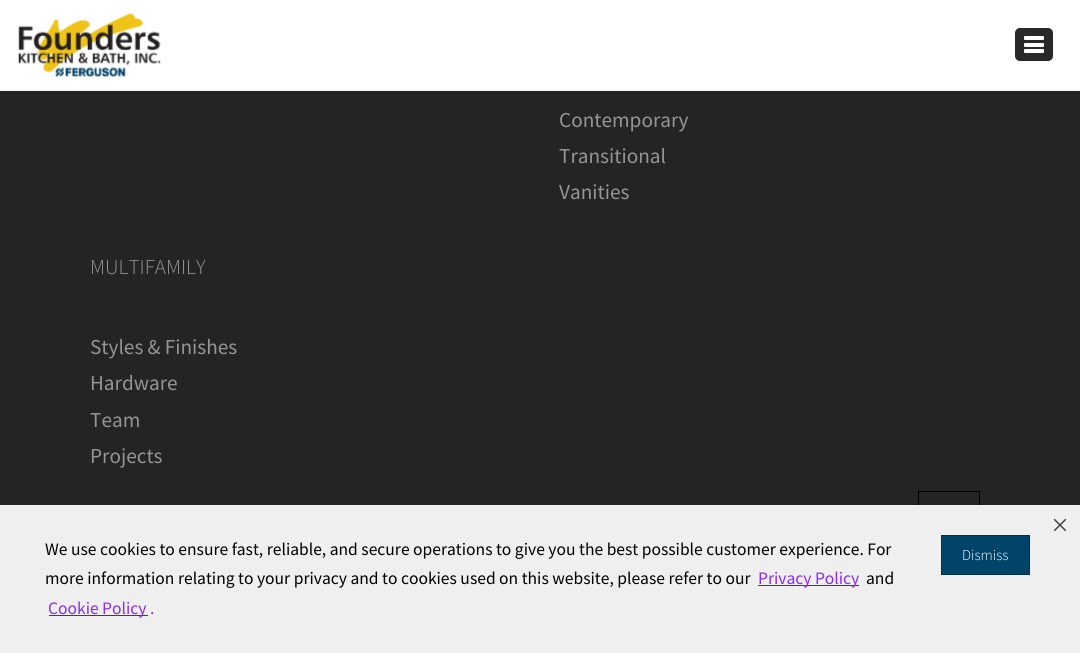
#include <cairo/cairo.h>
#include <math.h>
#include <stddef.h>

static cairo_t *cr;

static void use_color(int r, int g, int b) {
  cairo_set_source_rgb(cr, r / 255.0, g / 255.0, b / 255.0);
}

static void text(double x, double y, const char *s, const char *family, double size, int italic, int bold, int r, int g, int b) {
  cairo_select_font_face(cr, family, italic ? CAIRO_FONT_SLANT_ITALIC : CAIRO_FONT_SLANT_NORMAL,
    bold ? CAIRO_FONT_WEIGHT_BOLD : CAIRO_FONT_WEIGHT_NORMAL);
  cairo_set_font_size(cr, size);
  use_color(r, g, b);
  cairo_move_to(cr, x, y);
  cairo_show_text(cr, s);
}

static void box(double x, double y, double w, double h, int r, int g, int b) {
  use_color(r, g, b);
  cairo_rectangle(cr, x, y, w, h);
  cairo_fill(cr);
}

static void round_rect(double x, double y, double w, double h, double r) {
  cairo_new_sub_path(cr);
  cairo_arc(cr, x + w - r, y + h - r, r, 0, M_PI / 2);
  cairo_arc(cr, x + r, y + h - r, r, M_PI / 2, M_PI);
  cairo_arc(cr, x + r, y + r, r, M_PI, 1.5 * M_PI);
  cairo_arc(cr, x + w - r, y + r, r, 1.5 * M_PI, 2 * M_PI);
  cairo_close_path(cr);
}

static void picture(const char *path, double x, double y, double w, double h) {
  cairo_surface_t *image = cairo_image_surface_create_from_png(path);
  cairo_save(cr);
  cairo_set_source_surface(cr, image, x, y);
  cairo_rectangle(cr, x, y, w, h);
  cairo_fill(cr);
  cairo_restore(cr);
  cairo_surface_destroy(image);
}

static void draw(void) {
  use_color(36, 36, 36);
  cairo_paint(cr);
  box(0, 0, 1080, 90, 255, 255, 255);
  box(0, 90, 1080, 1, 242, 242, 242);
  picture("img_01.png", 18, 13, 143, 64);
  use_color(41, 41, 41);
  round_rect(1015, 28, 38, 33, 5);
  cairo_fill(cr);
  use_color(255, 255, 255);
  round_rect(1024, 36, 20, 4, 1);
  cairo_fill(cr);
  round_rect(1024, 43, 20, 4, 1);
  cairo_fill(cr);
  round_rect(1024, 49, 20, 4, 1);
  cairo_fill(cr);
  cairo_rectangle(cr, 918.5, 491.5, 61, 62);
  use_color(0, 0, 0);
  cairo_set_line_width(cr, 1);
  cairo_stroke(cr);
  box(0, 505, 1080, 148, 239, 239, 239);
  box(758, 585, 101, 1, 64, 64, 64);
  box(49, 615, 99, 1, 64, 64, 64);
  picture("img_02.png", 1054, 519, 12, 12);
  use_color(0, 68, 106);
  cairo_rectangle(cr, 941.5, 535.5, 88, 39);
  cairo_fill_preserve(cr);
  use_color(0, 48, 81);
  cairo_stroke(cr);
  text(559, 127, "Contemporary", "Source Sans Pro", 21.25, 0, 0, 149, 149, 149);
  text(559, 163, "Transitional", "Source Sans Pro", 21.25, 0, 0, 149, 149, 149);
  text(559, 199, "Vanities", "Source Sans Pro", 21.25, 0, 0, 149, 149, 149);
  text(90, 274, "MULTIFAMILY", "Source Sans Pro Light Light", 21.25, 0, 0, 149, 149, 149);
  text(90, 354, "Styles & Finishes", "Source Sans Pro", 21.25, 0, 0, 149, 149, 149);
  text(90, 390, "Hardware", "Source Sans Pro", 21.25, 0, 0, 149, 149, 149);
  text(90, 427, "Team", "Source Sans Pro", 21.25, 0, 0, 149, 149, 149);
  text(90, 463, "Projects", "Source Sans Pro", 21.25, 0, 0, 149, 149, 149);
  text(45, 555, "We use cookies to ensure fast, reliable, and secure operations to give you the best possible customer experience. For", "Source Sans Pro", 17.5, 0, 0, 0, 0, 0);
  text(45, 584, "more information relating to your privacy and to cookies used on this website, please refer to our", "Source Sans Pro", 17.5, 0, 0, 0, 0, 0);
  text(758, 584, "Privacy Policy", "Source Sans Pro", 17.5, 0, 0, 139, 42, 245);
  text(866, 584, "and", "Source Sans Pro", 17.5, 0, 0, 0, 0, 0);
  text(48, 614, "Cookie Policy .", "Source Sans Pro", 17.5, 0, 0, 139, 42, 245);
  text(962, 560, "Dismiss", "Source Sans Pro Light Light", 15, 0, 0, 255, 255, 255);
}

int main(void) {
  cairo_surface_t *surface = cairo_image_surface_create(CAIRO_FORMAT_RGB24, 1080, 653);
  cr = cairo_create(surface);
  cairo_font_options_t *options = cairo_font_options_create();
  cairo_font_options_set_hint_metrics(options, CAIRO_HINT_METRICS_OFF);
  cairo_font_options_set_hint_style(options, CAIRO_HINT_STYLE_NONE);
  cairo_set_font_options(cr, options);
  cairo_set_miter_limit(cr, 4);
  draw();
  cairo_surface_write_to_png(surface, "out.png");
  cairo_font_options_destroy(options);
  cairo_destroy(cr);
  cairo_surface_destroy(surface);
  return 0;
}
